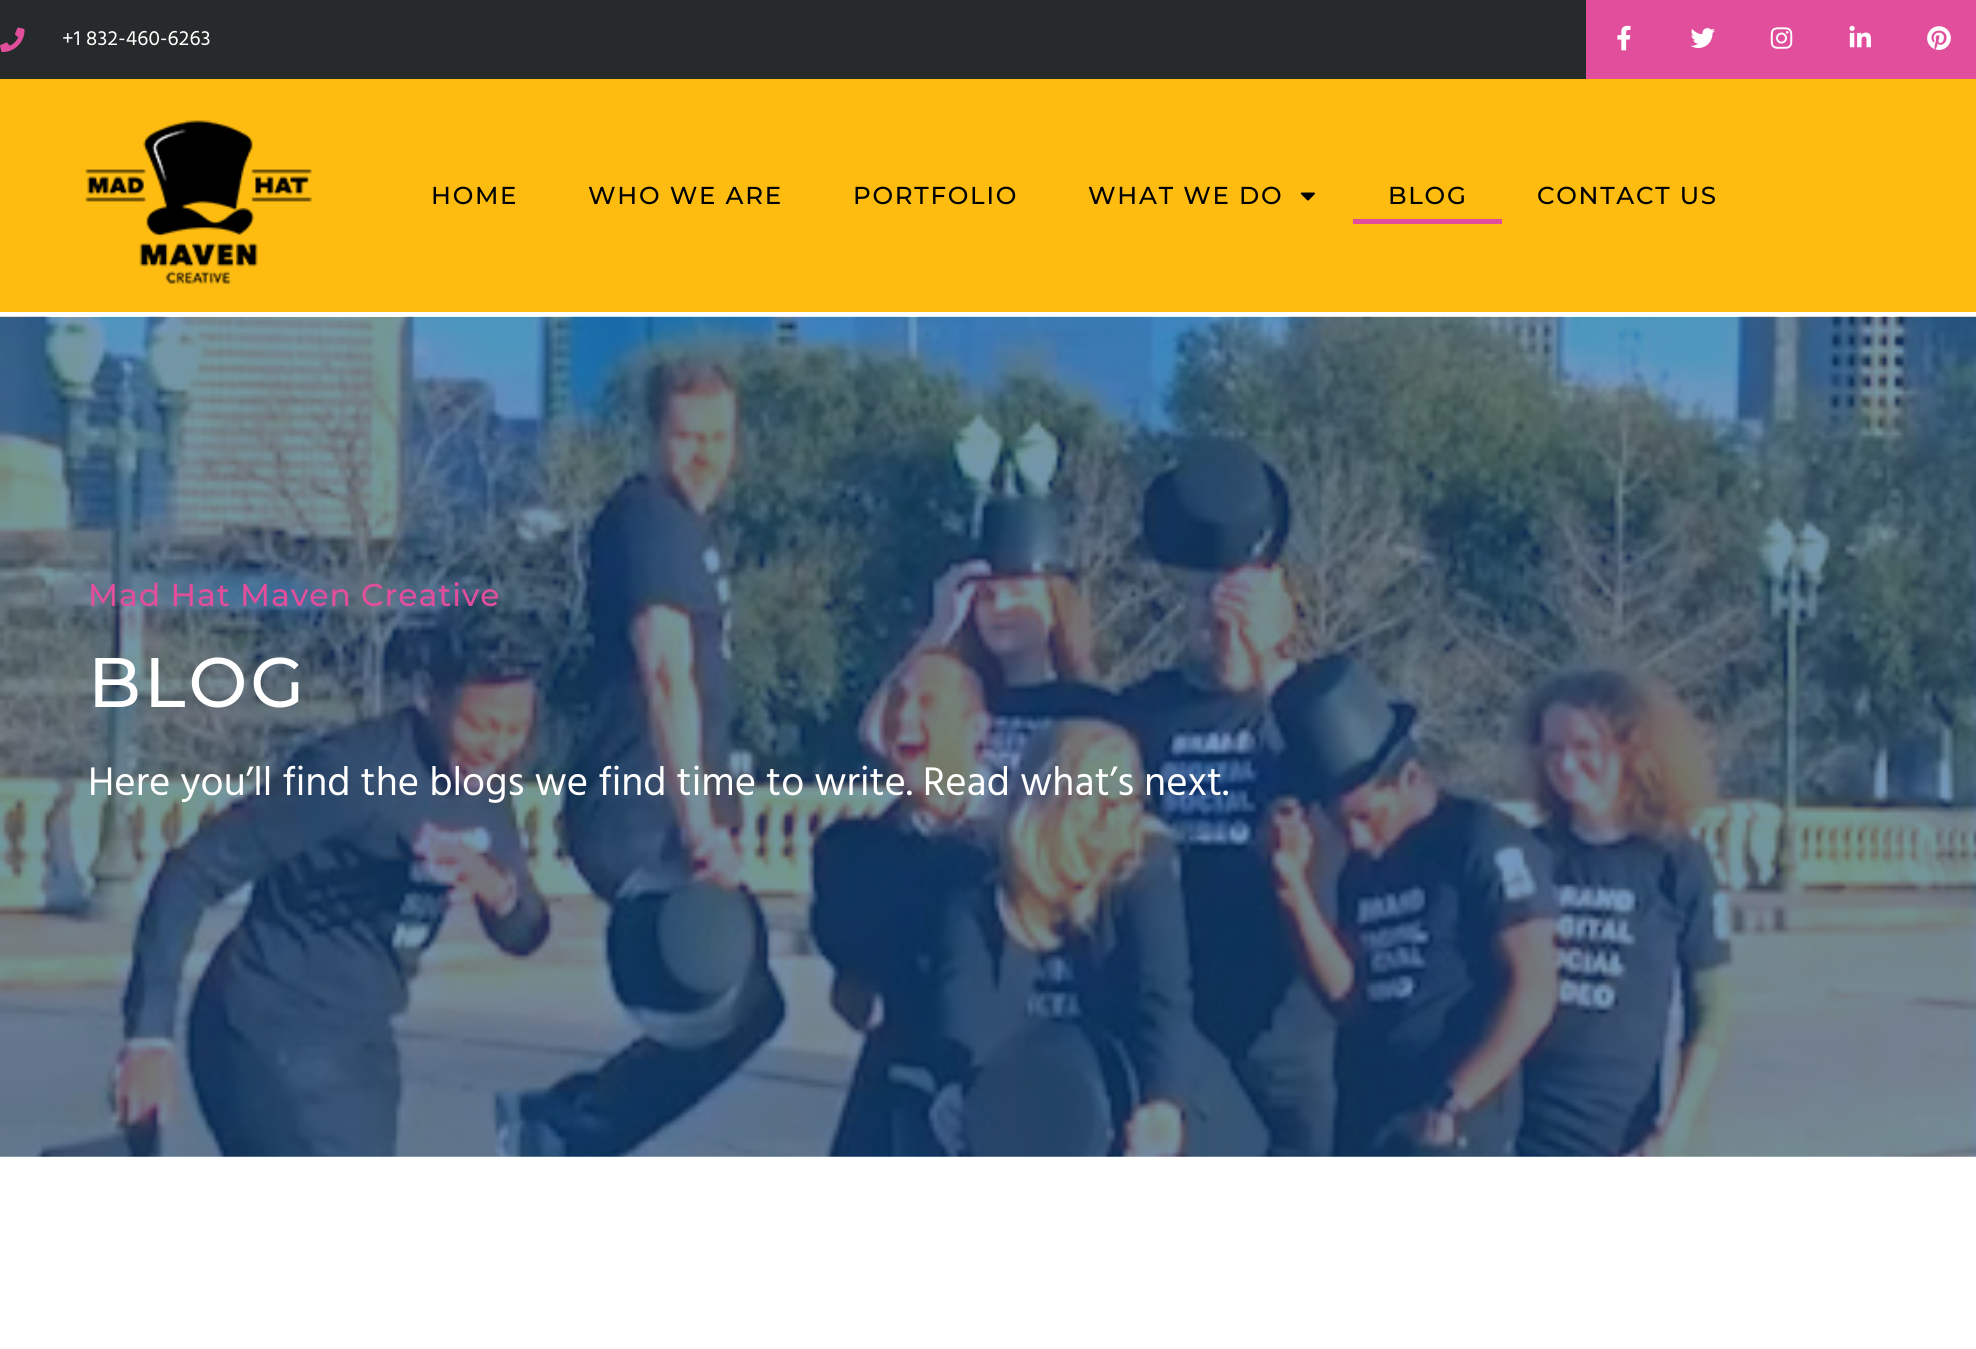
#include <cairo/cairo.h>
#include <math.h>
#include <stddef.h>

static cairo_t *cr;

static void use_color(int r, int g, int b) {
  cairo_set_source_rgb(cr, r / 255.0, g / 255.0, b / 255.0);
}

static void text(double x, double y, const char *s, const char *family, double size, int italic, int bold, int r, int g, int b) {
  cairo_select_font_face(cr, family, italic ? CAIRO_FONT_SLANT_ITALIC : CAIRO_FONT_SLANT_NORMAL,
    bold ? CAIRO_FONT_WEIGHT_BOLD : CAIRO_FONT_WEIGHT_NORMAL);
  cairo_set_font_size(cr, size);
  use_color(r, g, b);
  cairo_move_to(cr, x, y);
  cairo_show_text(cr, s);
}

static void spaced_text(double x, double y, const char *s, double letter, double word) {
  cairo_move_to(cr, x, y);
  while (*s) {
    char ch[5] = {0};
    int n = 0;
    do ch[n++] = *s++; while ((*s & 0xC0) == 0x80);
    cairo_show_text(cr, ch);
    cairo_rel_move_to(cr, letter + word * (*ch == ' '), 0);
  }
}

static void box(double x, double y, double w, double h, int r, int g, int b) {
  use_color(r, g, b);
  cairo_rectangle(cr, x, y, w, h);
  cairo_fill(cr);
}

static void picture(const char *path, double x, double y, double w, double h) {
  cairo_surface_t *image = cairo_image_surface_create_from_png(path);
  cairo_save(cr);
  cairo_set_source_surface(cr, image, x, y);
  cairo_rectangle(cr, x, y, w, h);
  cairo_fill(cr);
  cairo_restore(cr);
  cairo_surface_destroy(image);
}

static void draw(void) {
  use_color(255, 255, 255);
  cairo_paint(cr);
  box(0, 0, 1586, 79, 38, 42, 43);
  picture("img_01.png", 0, 27, 25, 26);
  box(1586, 0, 390, 79, 225, 79, 156);
  picture("img_02.png", 1617, 25, 14, 26);
  picture("img_03.png", 1690, 28, 25, 20);
  picture("img_04.png", 1770, 27, 23, 22);
  picture("img_05.png", 1849, 25, 22, 23);
  picture("img_06.png", 1927, 26, 24, 24);
  box(0, 79, 1976, 233, 254, 188, 17);
  picture("img_07.png", 85, 120, 227, 164);
  picture("img_08.png", 1300, 192, 15, 9);
  box(1353, 219, 149, 5, 225, 79, 156);
  picture("img_09.png", 0, 316, 1976, 841);
  cairo_select_font_face(cr, "Hind", CAIRO_FONT_SLANT_NORMAL, CAIRO_FONT_WEIGHT_NORMAL);
  cairo_set_font_size(cr, 21);
  use_color(255, 255, 255);
  spaced_text(62, 45, "+1 832-460-6263", 0.2, 0);
  cairo_select_font_face(cr, "Montserrat Medium", CAIRO_FONT_SLANT_NORMAL, CAIRO_FONT_WEIGHT_NORMAL);
  cairo_set_font_size(cr, 24.5);
  use_color(0, 0, 0);
  spaced_text(431, 204, "HOME", 1.75, 0);
  spaced_text(588, 204, "WHO WE ARE", 1.75, 0);
  spaced_text(853, 204, "PORTFOLIO", 1.75, 0);
  spaced_text(1088, 204, "WHAT WE DO", 1.75, 0);
  spaced_text(1388, 204, "BLOG", 1.75, 0);
  spaced_text(1537, 204, "CONTACT US", 1.75, 0);
  cairo_set_font_size(cr, 31.5);
  use_color(225, 79, 156);
  spaced_text(88, 606, "Mad Hat Maven Creative", 0.9, 0);
  cairo_set_font_size(cr, 70);
  use_color(255, 255, 255);
  spaced_text(88, 707, "BLOG", 3, 0);
  text(88, 795, "Here you’ll find the blogs we find time to write. Read what’s next.", "Hind", 40.95, 0, 0, 255, 255, 255);
}

int main(void) {
  cairo_surface_t *surface = cairo_image_surface_create(CAIRO_FORMAT_RGB24, 1976, 1349);
  cr = cairo_create(surface);
  cairo_font_options_t *options = cairo_font_options_create();
  cairo_font_options_set_hint_metrics(options, CAIRO_HINT_METRICS_OFF);
  cairo_font_options_set_hint_style(options, CAIRO_HINT_STYLE_NONE);
  cairo_set_font_options(cr, options);
  cairo_set_miter_limit(cr, 4);
  draw();
  cairo_surface_write_to_png(surface, "out.png");
  cairo_font_options_destroy(options);
  cairo_destroy(cr);
  cairo_surface_destroy(surface);
  return 0;
}
